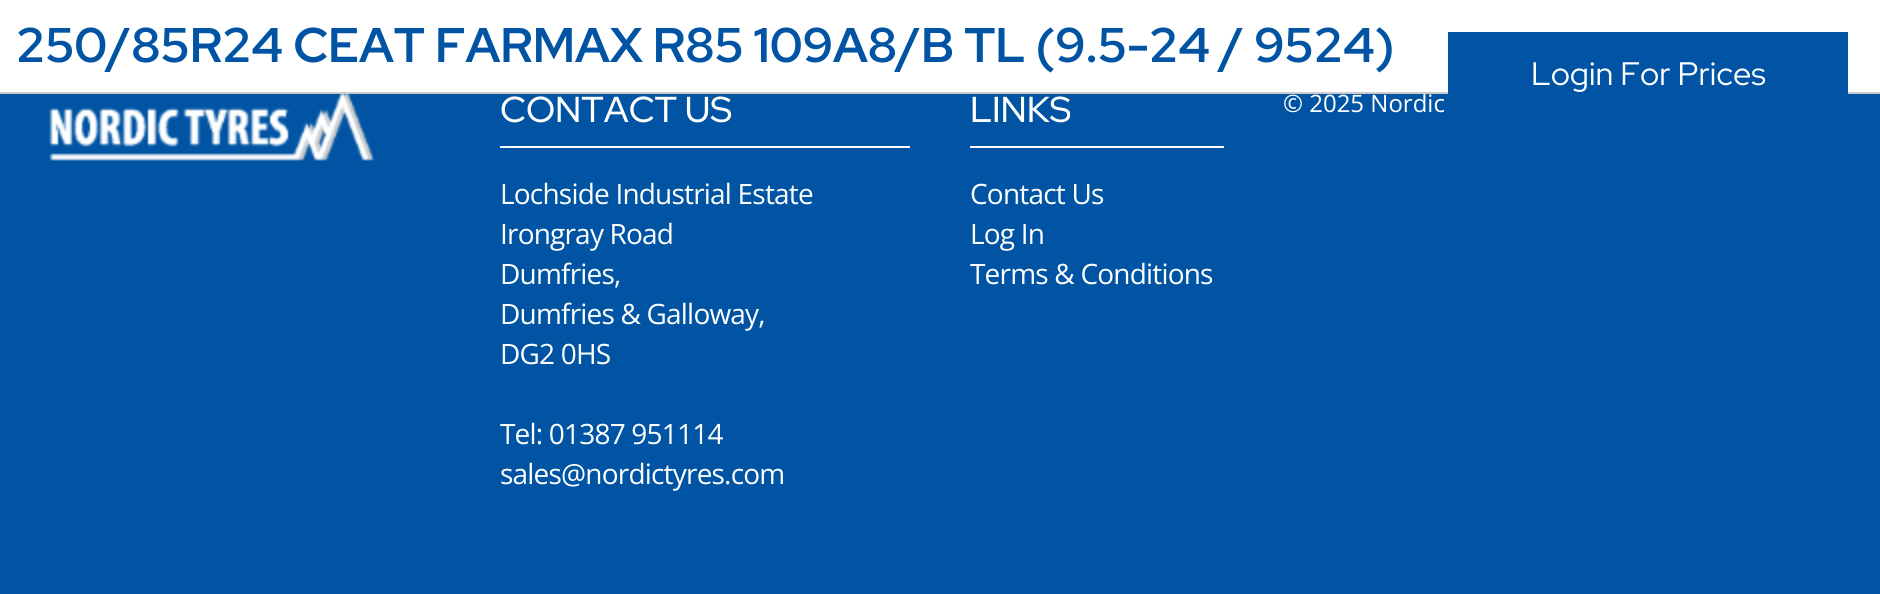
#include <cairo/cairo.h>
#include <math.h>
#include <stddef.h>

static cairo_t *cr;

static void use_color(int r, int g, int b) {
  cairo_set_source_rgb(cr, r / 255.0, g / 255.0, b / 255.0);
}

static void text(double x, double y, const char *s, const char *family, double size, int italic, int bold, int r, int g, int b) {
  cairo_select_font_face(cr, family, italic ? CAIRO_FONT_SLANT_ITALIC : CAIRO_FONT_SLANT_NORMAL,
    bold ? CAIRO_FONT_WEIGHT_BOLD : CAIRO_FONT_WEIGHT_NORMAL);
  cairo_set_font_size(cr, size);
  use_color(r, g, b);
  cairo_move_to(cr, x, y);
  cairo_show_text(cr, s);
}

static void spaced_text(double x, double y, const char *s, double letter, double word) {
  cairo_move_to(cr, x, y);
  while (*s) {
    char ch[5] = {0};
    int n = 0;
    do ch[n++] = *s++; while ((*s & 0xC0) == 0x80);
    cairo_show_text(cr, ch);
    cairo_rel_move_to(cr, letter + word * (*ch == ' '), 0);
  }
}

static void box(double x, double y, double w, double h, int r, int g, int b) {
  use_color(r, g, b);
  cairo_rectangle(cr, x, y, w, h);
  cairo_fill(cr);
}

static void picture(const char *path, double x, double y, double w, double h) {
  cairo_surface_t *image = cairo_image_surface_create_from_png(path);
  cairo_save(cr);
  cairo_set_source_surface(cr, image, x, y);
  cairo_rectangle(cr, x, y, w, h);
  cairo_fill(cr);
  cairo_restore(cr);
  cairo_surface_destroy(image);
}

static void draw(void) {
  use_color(0, 84, 163);
  cairo_paint(cr);
  box(0, 0, 1880, 92, 255, 255, 255);
  picture("img_01.png", 49, 94, 326, 67);
  box(500, 146, 410, 2, 255, 255, 255);
  box(970, 146, 254, 2, 255, 255, 255);
  text(16, 62, "250/85R24 CEAT FARMAX R85 109A8/B TL (9.5-24 / 9524)", "Red Hat Display", 48.6, 0, 1, 0, 84, 163);
  text(500, 122, "CONTACT US", "Red Hat Display Medium", 36, 0, 0, 255, 255, 255);
  cairo_select_font_face(cr, "Open Sans", CAIRO_FONT_SLANT_NORMAL, CAIRO_FONT_WEIGHT_NORMAL);
  cairo_set_font_size(cr, 28);
  spaced_text(500, 204, "Lochside Industrial Estate", -0.8, 0);
  spaced_text(500, 244, "Irongray Road", -0.8, 0);
  spaced_text(500, 284, "Dumfries,", -0.8, 0);
  spaced_text(500, 324, "Dumfries & Galloway,", -0.8, 0);
  spaced_text(500, 364, "DG2 0HS", -0.8, 0);
  spaced_text(500, 444, "Tel: 01387 951114", -0.8, 0);
  spaced_text(500, 484, "sales@nordictyres.com", -0.8, 0);
  text(970, 122, "LINKS", "Red Hat Display Medium", 36, 0, 0, 255, 255, 255);
  cairo_select_font_face(cr, "Open Sans", CAIRO_FONT_SLANT_NORMAL, CAIRO_FONT_WEIGHT_NORMAL);
  cairo_set_font_size(cr, 28);
  spaced_text(970, 204, "Contact Us", -0.8, 0);
  spaced_text(970, 244, "Log In", -0.8, 0);
  spaced_text(970, 284, "Terms & Conditions", -0.8, 0);
  text(1283, 112, "© 2025 Nordic", "Open Sans", 24, 0, 0, 255, 255, 255);
  box(0, 92, 1880, 2, 204, 204, 204);
  box(1448, 32, 400, 62, 0, 84, 163);
  text(1531, 85, "Login For Prices", "Red Hat Display", 32.5, 0, 0, 255, 255, 255);
}

int main(void) {
  cairo_surface_t *surface = cairo_image_surface_create(CAIRO_FORMAT_RGB24, 1880, 594);
  cr = cairo_create(surface);
  cairo_font_options_t *options = cairo_font_options_create();
  cairo_font_options_set_hint_metrics(options, CAIRO_HINT_METRICS_OFF);
  cairo_font_options_set_hint_style(options, CAIRO_HINT_STYLE_NONE);
  cairo_set_font_options(cr, options);
  cairo_set_miter_limit(cr, 4);
  draw();
  cairo_surface_write_to_png(surface, "out.png");
  cairo_font_options_destroy(options);
  cairo_destroy(cr);
  cairo_surface_destroy(surface);
  return 0;
}
